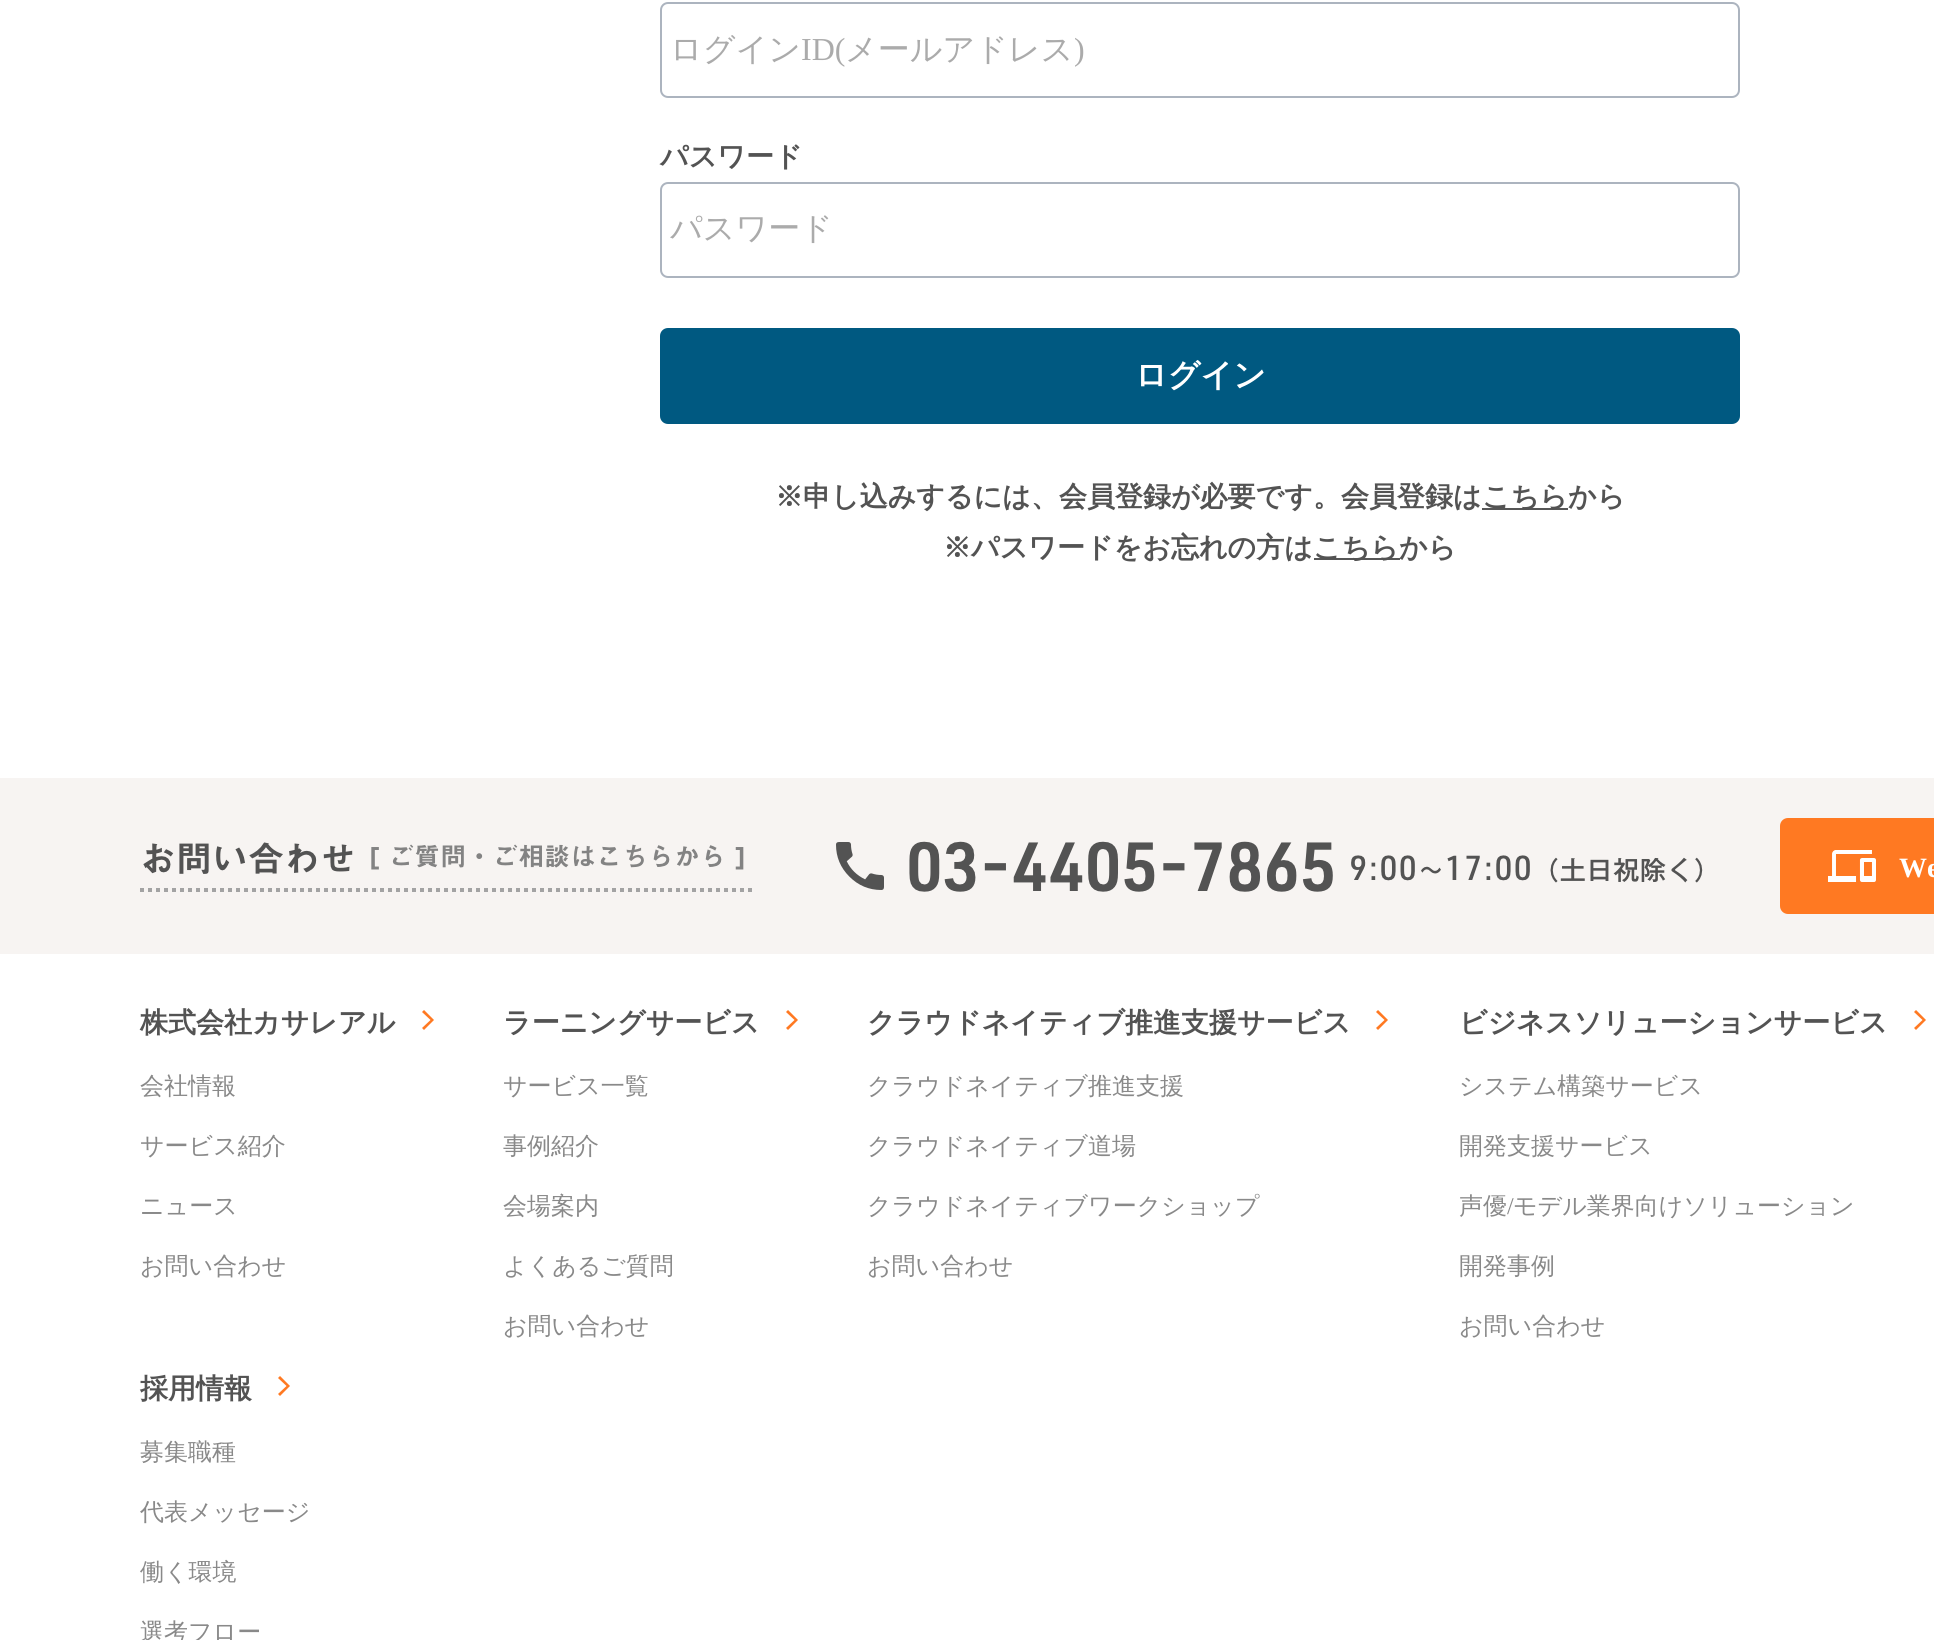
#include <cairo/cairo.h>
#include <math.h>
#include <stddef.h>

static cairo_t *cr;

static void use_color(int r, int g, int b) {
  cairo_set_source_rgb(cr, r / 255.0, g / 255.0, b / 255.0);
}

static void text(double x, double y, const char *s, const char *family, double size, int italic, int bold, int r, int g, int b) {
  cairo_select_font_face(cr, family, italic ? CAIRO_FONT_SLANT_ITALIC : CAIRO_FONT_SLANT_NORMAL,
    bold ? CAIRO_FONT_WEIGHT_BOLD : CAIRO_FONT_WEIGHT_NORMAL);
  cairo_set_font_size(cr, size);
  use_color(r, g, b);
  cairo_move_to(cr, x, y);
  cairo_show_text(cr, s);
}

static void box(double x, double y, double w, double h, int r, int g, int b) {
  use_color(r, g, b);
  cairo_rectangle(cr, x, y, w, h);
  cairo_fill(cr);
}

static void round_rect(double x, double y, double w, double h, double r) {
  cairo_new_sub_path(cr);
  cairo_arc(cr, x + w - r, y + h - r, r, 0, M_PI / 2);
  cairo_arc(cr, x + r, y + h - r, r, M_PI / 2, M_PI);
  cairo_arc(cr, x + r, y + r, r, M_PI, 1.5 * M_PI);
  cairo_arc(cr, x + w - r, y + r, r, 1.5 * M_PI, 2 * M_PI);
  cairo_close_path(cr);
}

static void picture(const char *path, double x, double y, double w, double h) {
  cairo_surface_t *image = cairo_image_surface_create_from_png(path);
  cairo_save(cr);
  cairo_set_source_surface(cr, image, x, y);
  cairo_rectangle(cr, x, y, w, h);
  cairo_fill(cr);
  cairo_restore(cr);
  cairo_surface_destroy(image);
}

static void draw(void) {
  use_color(255, 255, 255);
  cairo_paint(cr);
  round_rect(661, 3, 1078, 94, 7);
  use_color(172, 180, 191);
  cairo_stroke(cr);
  round_rect(661, 183, 1078, 94, 7);
  cairo_stroke(cr);
  use_color(0, 89, 129);
  round_rect(660, 328, 1080, 96, 8);
  cairo_fill(cr);
  box(1482, 508, 86, 2, 86, 86, 86);
  box(1314, 558, 86, 2, 86, 86, 86);
  box(0, 778, 1934, 176, 247, 244, 242);
  picture("img_01.png", 140, 842, 612, 50);
  picture("img_02.png", 836, 842, 48, 48);
  picture("img_03.png", 909, 841, 424, 51);
  picture("img_04.png", 1351, 855, 352, 28);
  use_color(255, 121, 34);
  round_rect(1780, 818, 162, 96, 8);
  cairo_fill(cr);
  picture("img_05.png", 1828, 850, 48, 32);
  cairo_new_path(cr);
  cairo_move_to(cr, 422, 1028);
  cairo_line_to(cr, 424, 1030);
  cairo_line_to(cr, 434, 1020);
  cairo_line_to(cr, 424, 1010);
  cairo_line_to(cr, 422, 1012);
  cairo_line_to(cr, 430.5, 1020);
  cairo_close_path(cr);
  cairo_fill(cr);
  cairo_new_path(cr);
  cairo_move_to(cr, 278, 1394);
  cairo_line_to(cr, 280, 1396);
  cairo_line_to(cr, 290, 1386);
  cairo_line_to(cr, 280, 1376);
  cairo_line_to(cr, 278, 1378);
  cairo_line_to(cr, 286.5, 1386);
  cairo_close_path(cr);
  cairo_fill(cr);
  cairo_new_path(cr);
  cairo_move_to(cr, 786, 1028);
  cairo_line_to(cr, 788, 1030);
  cairo_line_to(cr, 798, 1020);
  cairo_line_to(cr, 788, 1010);
  cairo_line_to(cr, 786, 1012);
  cairo_line_to(cr, 794.5, 1020);
  cairo_close_path(cr);
  cairo_fill(cr);
  cairo_new_path(cr);
  cairo_move_to(cr, 1376, 1028);
  cairo_line_to(cr, 1378, 1030);
  cairo_line_to(cr, 1388, 1020);
  cairo_line_to(cr, 1378, 1010);
  cairo_line_to(cr, 1376, 1012);
  cairo_line_to(cr, 1384.5, 1020);
  cairo_close_path(cr);
  cairo_fill(cr);
  cairo_new_path(cr);
  cairo_move_to(cr, 1914, 1028);
  cairo_line_to(cr, 1916, 1030);
  cairo_line_to(cr, 1926, 1020);
  cairo_line_to(cr, 1916, 1010);
  cairo_line_to(cr, 1914, 1012);
  cairo_line_to(cr, 1922.5, 1020);
  cairo_close_path(cr);
  cairo_fill(cr);
  text(670, 60, "ログイン", "WenQuanYi Zen Hei Medium", 32, 0, 0, 171, 171, 171);
  text(801, 60, "ID(", "Liberation Serif", 32, 0, 0, 171, 171, 171);
  text(845, 60, "メールアドレス", "WenQuanYi Zen Hei Medium", 32, 0, 0, 171, 171, 171);
  text(1074, 60, ")", "Liberation Serif", 32, 0, 0, 171, 171, 171);
  text(660, 166, "パスワード", "WenQuanYi Zen Hei", 28, 0, 1, 83, 83, 83);
  text(670, 239, "パスワード", "WenQuanYi Zen Hei Medium", 32, 0, 0, 171, 171, 171);
  text(1135, 386, "ログイン", "WenQuanYi Zen Hei", 32, 0, 1, 255, 255, 255);
  text(775, 506, "※申し込みするには、会員登録が必要です。会員登録は", "WenQuanYi Zen Hei", 28, 0, 1, 83, 83, 83);
  text(1482, 506, "こちらから", "WenQuanYi Zen Hei", 28, 0, 1, 83, 83, 83);
  text(943, 557, "※パスワードをお忘れの方は", "WenQuanYi Zen Hei", 28, 0, 1, 83, 83, 83);
  text(1313, 557, "こちらから", "WenQuanYi Zen Hei", 28, 0, 1, 83, 83, 83);
  text(1899, 877, "We", "Liberation Serif", 28, 0, 1, 255, 255, 255);
  text(140, 1032, "株式会社カサレアル", "WenQuanYi Zen Hei", 28, 0, 1, 83, 83, 83);
  text(140, 1094, "会社情報", "WenQuanYi Zen Hei Medium", 24, 0, 0, 137, 137, 137);
  text(140, 1154, "サービス紹介", "WenQuanYi Zen Hei Medium", 24, 0, 0, 137, 137, 137);
  text(140, 1214, "ニュース", "WenQuanYi Zen Hei Medium", 24, 0, 0, 137, 137, 137);
  text(140, 1274, "お問い合わせ", "WenQuanYi Zen Hei Medium", 24, 0, 0, 137, 137, 137);
  text(140, 1398, "採用情報", "WenQuanYi Zen Hei", 28, 0, 1, 83, 83, 83);
  text(140, 1460, "募集職種", "WenQuanYi Zen Hei Medium", 24, 0, 0, 137, 137, 137);
  text(140, 1520, "代表メッセージ", "WenQuanYi Zen Hei Medium", 24, 0, 0, 137, 137, 137);
  text(140, 1580, "働く環境", "WenQuanYi Zen Hei Medium", 24, 0, 0, 137, 137, 137);
  text(140, 1640, "選考フロー", "WenQuanYi Zen Hei Medium", 24, 0, 0, 137, 137, 137);
  text(503, 1032, "ラーニングサービス", "WenQuanYi Zen Hei", 28, 0, 1, 83, 83, 83);
  text(503, 1094, "サービス一覧", "WenQuanYi Zen Hei Medium", 24, 0, 0, 137, 137, 137);
  text(503, 1154, "事例紹介", "WenQuanYi Zen Hei Medium", 24, 0, 0, 137, 137, 137);
  text(503, 1214, "会場案内", "WenQuanYi Zen Hei Medium", 24, 0, 0, 137, 137, 137);
  text(503, 1274, "よくあるご質問", "WenQuanYi Zen Hei Medium", 24, 0, 0, 137, 137, 137);
  text(503, 1334, "お問い合わせ", "WenQuanYi Zen Hei Medium", 24, 0, 0, 137, 137, 137);
  text(867, 1032, "クラウドネイティブ推進支援サービス", "WenQuanYi Zen Hei", 28, 0, 1, 83, 83, 83);
  text(867, 1094, "クラウドネイティブ推進支援", "WenQuanYi Zen Hei Medium", 24, 0, 0, 137, 137, 137);
  text(867, 1154, "クラウドネイティブ道場", "WenQuanYi Zen Hei Medium", 24, 0, 0, 137, 137, 137);
  text(867, 1214, "クラウドネイティブワークショップ", "WenQuanYi Zen Hei Medium", 24, 0, 0, 137, 137, 137);
  text(867, 1274, "お問い合わせ", "WenQuanYi Zen Hei Medium", 24, 0, 0, 137, 137, 137);
  text(1459, 1032, "ビジネスソリューションサービス", "WenQuanYi Zen Hei", 28, 0, 1, 83, 83, 83);
  text(1459, 1094, "システム構築サービス", "WenQuanYi Zen Hei Medium", 24, 0, 0, 137, 137, 137);
  text(1459, 1154, "開発支援サービス", "WenQuanYi Zen Hei Medium", 24, 0, 0, 137, 137, 137);
  text(1459, 1214, "声優", "WenQuanYi Zen Hei Medium", 24, 0, 0, 137, 137, 137);
  text(1507, 1214, "/", "Liberation Serif", 24, 0, 0, 137, 137, 137);
  text(1513, 1214, "モデル業界向けソリューション", "WenQuanYi Zen Hei Medium", 24, 0, 0, 137, 137, 137);
  text(1459, 1274, "開発事例", "WenQuanYi Zen Hei Medium", 24, 0, 0, 137, 137, 137);
  text(1459, 1334, "お問い合わせ", "WenQuanYi Zen Hei Medium", 24, 0, 0, 137, 137, 137);
}

int main(void) {
  cairo_surface_t *surface = cairo_image_surface_create(CAIRO_FORMAT_RGB24, 1934, 1640);
  cr = cairo_create(surface);
  cairo_font_options_t *options = cairo_font_options_create();
  cairo_font_options_set_hint_metrics(options, CAIRO_HINT_METRICS_OFF);
  cairo_font_options_set_hint_style(options, CAIRO_HINT_STYLE_NONE);
  cairo_set_font_options(cr, options);
  cairo_set_miter_limit(cr, 4);
  draw();
  cairo_surface_write_to_png(surface, "out.png");
  cairo_font_options_destroy(options);
  cairo_destroy(cr);
  cairo_surface_destroy(surface);
  return 0;
}
